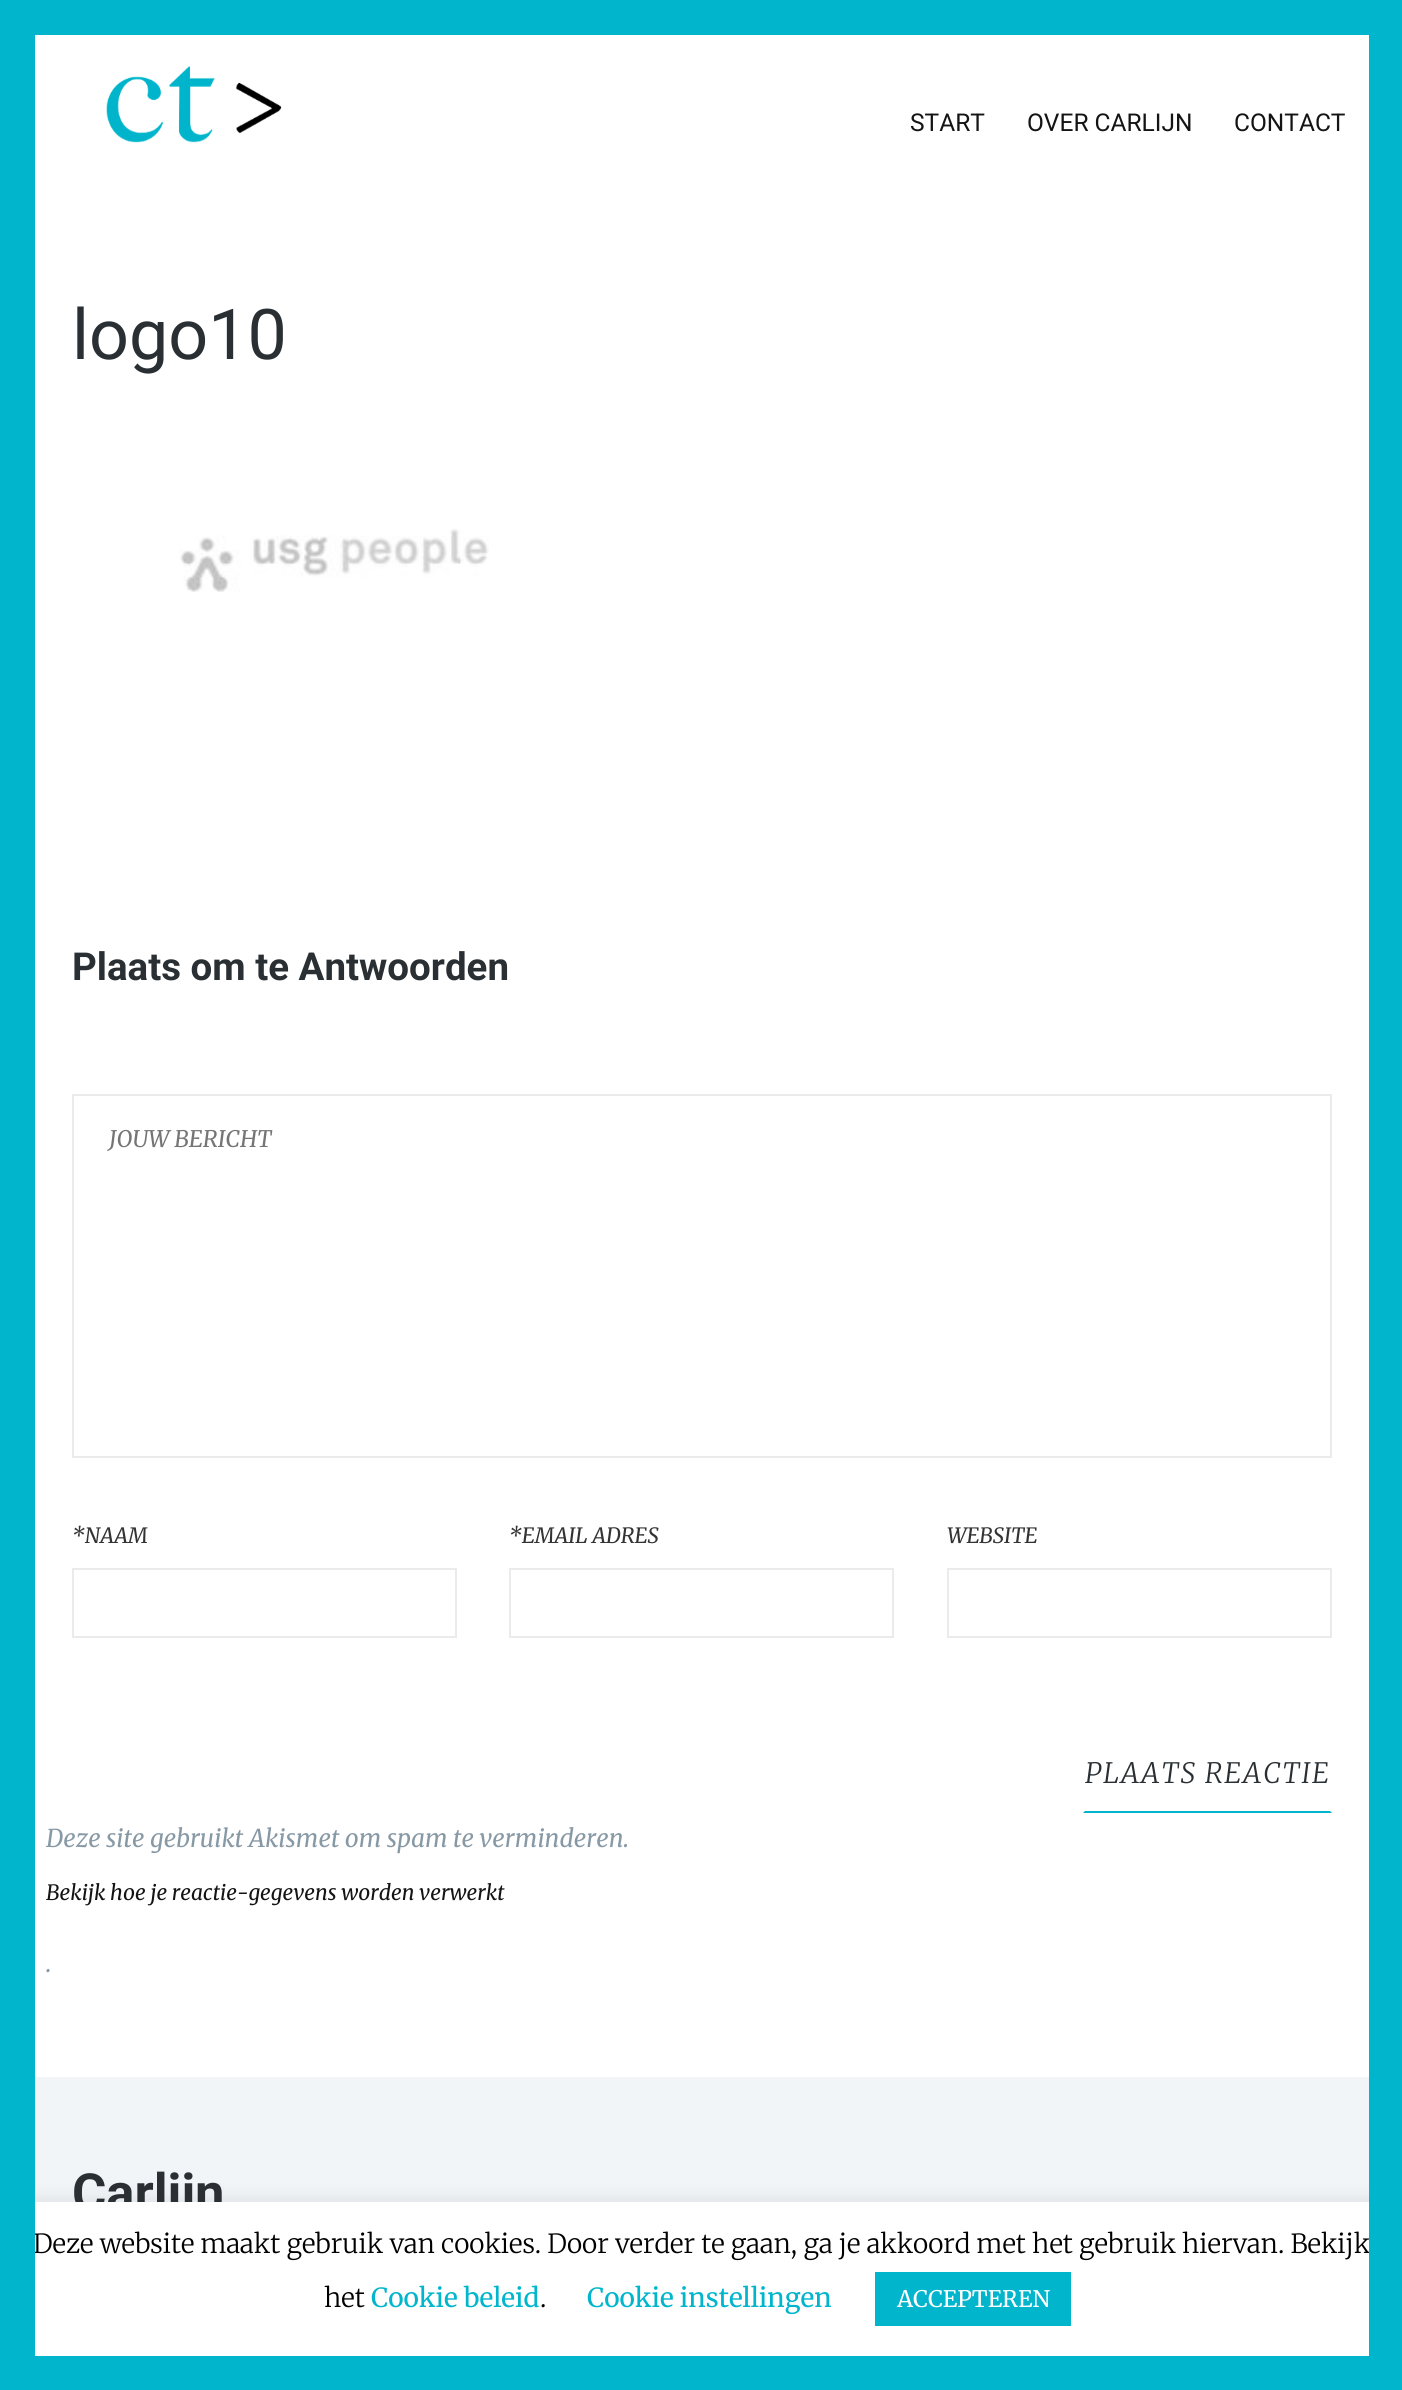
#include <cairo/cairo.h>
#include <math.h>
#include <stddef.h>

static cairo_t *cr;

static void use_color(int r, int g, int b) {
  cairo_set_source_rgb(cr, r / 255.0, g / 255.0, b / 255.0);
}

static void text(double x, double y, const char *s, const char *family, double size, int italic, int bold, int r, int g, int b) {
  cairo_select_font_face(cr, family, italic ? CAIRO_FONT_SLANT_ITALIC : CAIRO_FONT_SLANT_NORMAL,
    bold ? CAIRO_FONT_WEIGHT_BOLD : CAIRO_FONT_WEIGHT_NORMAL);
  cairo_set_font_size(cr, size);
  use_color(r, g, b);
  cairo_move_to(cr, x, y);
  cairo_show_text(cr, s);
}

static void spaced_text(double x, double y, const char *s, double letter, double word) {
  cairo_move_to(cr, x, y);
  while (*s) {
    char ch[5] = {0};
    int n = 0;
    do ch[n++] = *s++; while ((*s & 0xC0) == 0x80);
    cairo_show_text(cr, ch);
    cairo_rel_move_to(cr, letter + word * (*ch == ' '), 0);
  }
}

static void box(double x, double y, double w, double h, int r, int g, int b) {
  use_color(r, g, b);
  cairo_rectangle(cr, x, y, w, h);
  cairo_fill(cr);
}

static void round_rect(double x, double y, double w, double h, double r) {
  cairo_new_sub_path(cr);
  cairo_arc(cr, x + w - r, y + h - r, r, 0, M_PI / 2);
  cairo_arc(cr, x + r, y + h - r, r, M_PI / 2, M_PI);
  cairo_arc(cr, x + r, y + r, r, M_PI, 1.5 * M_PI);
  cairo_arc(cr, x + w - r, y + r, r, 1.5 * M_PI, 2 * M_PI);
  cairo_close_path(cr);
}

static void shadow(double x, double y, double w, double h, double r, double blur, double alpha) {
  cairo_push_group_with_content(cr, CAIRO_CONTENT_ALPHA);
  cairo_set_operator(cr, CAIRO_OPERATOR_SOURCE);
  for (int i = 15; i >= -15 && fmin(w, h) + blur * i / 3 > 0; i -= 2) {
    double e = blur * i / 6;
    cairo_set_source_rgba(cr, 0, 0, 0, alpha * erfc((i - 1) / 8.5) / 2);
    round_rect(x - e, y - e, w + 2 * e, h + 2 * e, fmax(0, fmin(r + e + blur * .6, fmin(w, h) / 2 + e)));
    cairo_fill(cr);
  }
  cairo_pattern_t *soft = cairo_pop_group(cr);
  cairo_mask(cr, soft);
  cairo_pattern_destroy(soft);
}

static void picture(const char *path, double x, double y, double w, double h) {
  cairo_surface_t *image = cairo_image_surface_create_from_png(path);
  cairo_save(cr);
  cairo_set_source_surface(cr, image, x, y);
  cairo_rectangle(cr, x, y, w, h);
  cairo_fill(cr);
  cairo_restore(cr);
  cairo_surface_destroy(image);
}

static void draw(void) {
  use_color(255, 255, 255);
  cairo_paint(cr);
  box(0, 0, 1402, 35, 0, 181, 204);
  picture("img_01.png", 106, 66, 176, 77);
  picture("img_02.png", 179, 528, 310, 64);
  cairo_rectangle(cr, 73, 1095, 1258, 362);
  use_color(235, 235, 235);
  cairo_stroke(cr);
  cairo_rectangle(cr, 73, 1569, 383, 68);
  cairo_stroke(cr);
  cairo_rectangle(cr, 510, 1569, 383, 68);
  cairo_stroke(cr);
  cairo_rectangle(cr, 948, 1569, 383, 68);
  cairo_stroke(cr);
  use_color(0, 181, 204);
  cairo_new_path(cr);
  cairo_move_to(cr, 1332, 1813);
  cairo_line_to(cr, 1083, 1813);
  cairo_line_to(cr, 1085, 1811);
  cairo_line_to(cr, 1330, 1811);
  cairo_close_path(cr);
  cairo_fill(cr);
  box(35, 2077, 1334, 125, 241, 245, 248);
  use_color(172, 171, 171);
  shadow(0, 2200, 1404, 154, 0, 9, 0.3);
  box(0, 2356, 1402, 34, 0, 181, 204);
  text(910, 131, "START", "Roboto", 24.5, 0, 0, 20, 20, 20);
  text(1027, 131, "OVER CARLIJN", "Roboto", 24.5, 0, 0, 20, 20, 20);
  text(1234, 131, "CONTACT", "Roboto", 24.5, 0, 0, 20, 20, 20);
  text(72, 359, "logo10", "Roboto", 70, 0, 0, 41, 47, 51);
  text(72, 980, "Plaats om te Antwoorden", "Roboto", 38.5, 0, 1, 41, 47, 51);
  text(109, 1147, "JOUW BERICHT", "Merriweather", 22.75, 1, 0, 117, 117, 117);
  text(72, 1543, "*NAAM", "Merriweather", 21, 1, 0, 51, 51, 51);
  text(509, 1543, "*EMAIL ADRES", "Merriweather", 21, 1, 0, 51, 51, 51);
  text(947, 1543, "WEBSITE", "Merriweather", 21, 1, 0, 51, 51, 51);
  cairo_select_font_face(cr, "Merriweather Light", CAIRO_FONT_SLANT_ITALIC, CAIRO_FONT_WEIGHT_NORMAL);
  cairo_set_font_size(cr, 28);
  use_color(41, 47, 51);
  spaced_text(1085, 1783, "PLAATS REACTIE", 1.75, 0);
  text(46, 1847, "Deze site gebruikt Akismet om spam te verminderen.", "Merriweather", 24.5, 1, 0, 136, 153, 166);
  text(46, 1900, "Bekijk hoe je reactie-gegevens worden verwerkt", "Merriweather", 21, 1, 0, 20, 20, 20);
  text(46, 1972, ".", "Merriweather", 24.5, 1, 0, 136, 153, 166);
  text(72, 2211, "Carlijn", "Roboto", 52.5, 0, 1, 41, 47, 51);
  box(35, 2202, 1334, 154, 255, 255, 255);
  text(33, 2253, "Deze website maakt gebruik van cookies. Door verder te gaan, ga je akkoord met het gebruik hiervan. Bekijk", "Merriweather Light", 26.25, 0, 0, 0, 0, 0);
  box(1369, 35, 33, 2321, 0, 181, 204);
  box(0, 35, 35, 2321, 0, 181, 204);
  text(324, 2307, "het", "Merriweather Light", 26.25, 0, 0, 0, 0, 0);
  text(371, 2307, "Cookie beleid", "Merriweather", 26.25, 0, 0, 0, 181, 204);
  text(540, 2307, ".", "Merriweather Light", 26.25, 0, 0, 0, 0, 0);
  text(587, 2307, "Cookie instellingen", "Merriweather", 26.25, 0, 0, 0, 181, 204);
  box(875, 2272, 196, 54, 0, 181, 204);
  text(897, 2307, "ACCEPTEREN", "Merriweather", 22.75, 0, 0, 255, 255, 255);
}

int main(void) {
  cairo_surface_t *surface = cairo_image_surface_create(CAIRO_FORMAT_RGB24, 1402, 2390);
  cr = cairo_create(surface);
  cairo_font_options_t *options = cairo_font_options_create();
  cairo_font_options_set_hint_metrics(options, CAIRO_HINT_METRICS_OFF);
  cairo_font_options_set_hint_style(options, CAIRO_HINT_STYLE_NONE);
  cairo_set_font_options(cr, options);
  cairo_set_miter_limit(cr, 4);
  draw();
  cairo_surface_write_to_png(surface, "out.png");
  cairo_font_options_destroy(options);
  cairo_destroy(cr);
  cairo_surface_destroy(surface);
  return 0;
}
